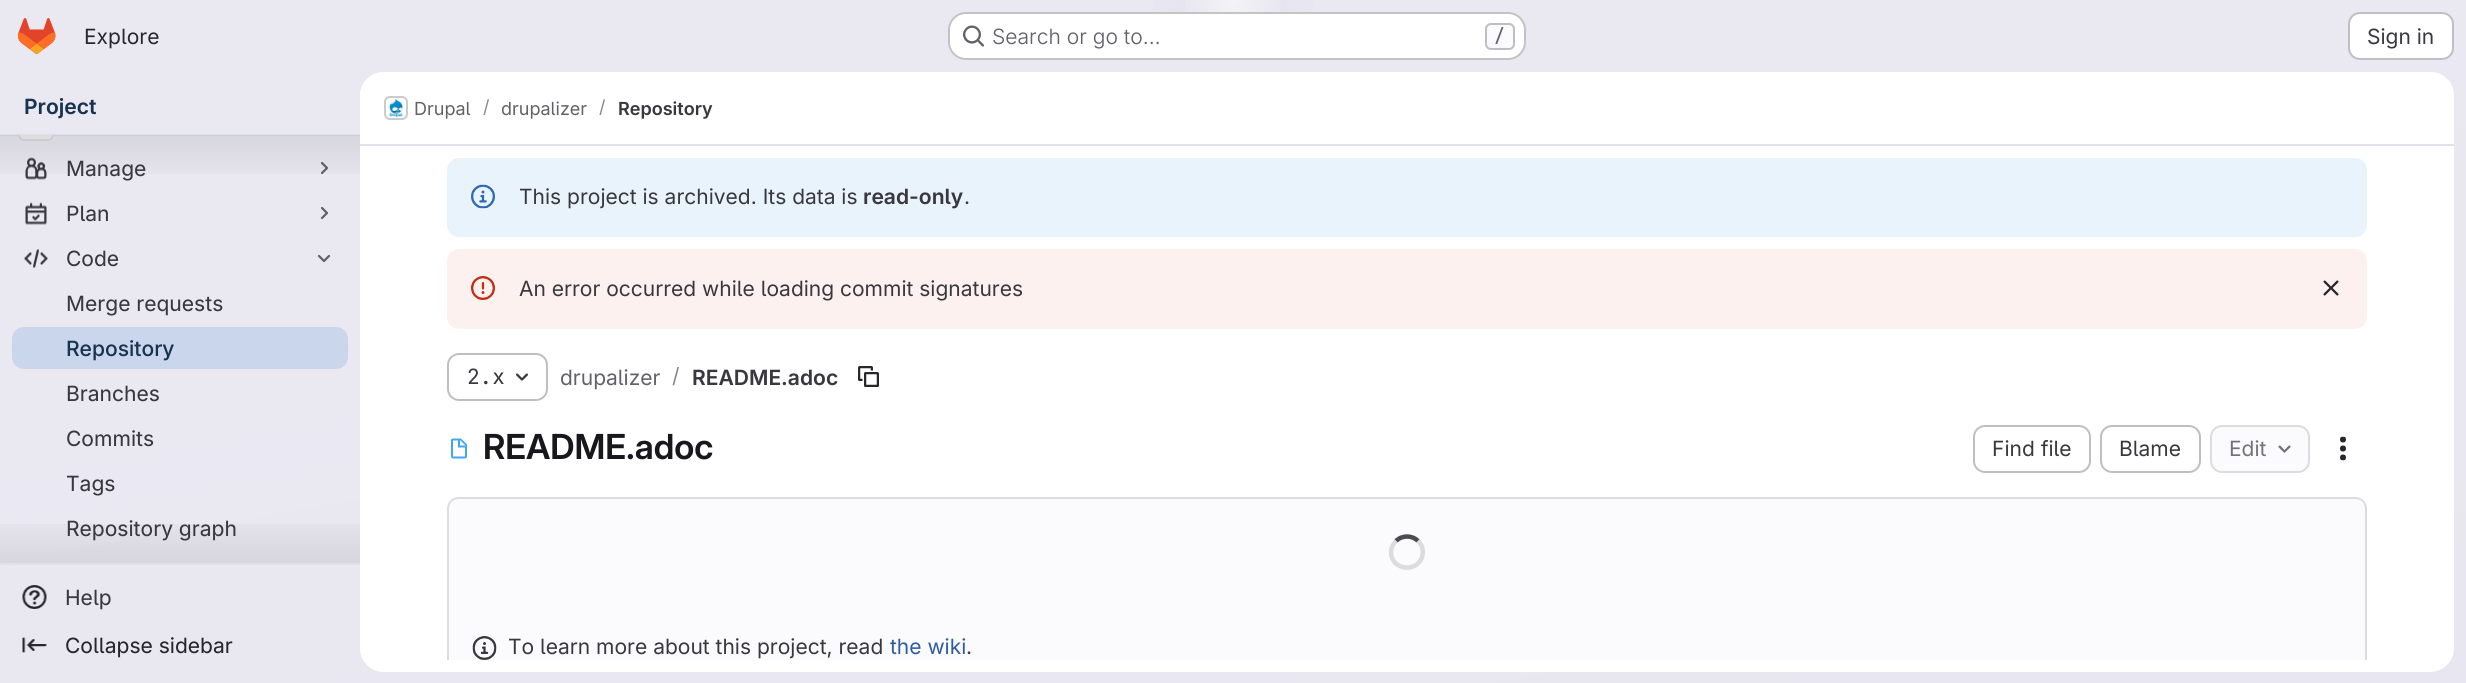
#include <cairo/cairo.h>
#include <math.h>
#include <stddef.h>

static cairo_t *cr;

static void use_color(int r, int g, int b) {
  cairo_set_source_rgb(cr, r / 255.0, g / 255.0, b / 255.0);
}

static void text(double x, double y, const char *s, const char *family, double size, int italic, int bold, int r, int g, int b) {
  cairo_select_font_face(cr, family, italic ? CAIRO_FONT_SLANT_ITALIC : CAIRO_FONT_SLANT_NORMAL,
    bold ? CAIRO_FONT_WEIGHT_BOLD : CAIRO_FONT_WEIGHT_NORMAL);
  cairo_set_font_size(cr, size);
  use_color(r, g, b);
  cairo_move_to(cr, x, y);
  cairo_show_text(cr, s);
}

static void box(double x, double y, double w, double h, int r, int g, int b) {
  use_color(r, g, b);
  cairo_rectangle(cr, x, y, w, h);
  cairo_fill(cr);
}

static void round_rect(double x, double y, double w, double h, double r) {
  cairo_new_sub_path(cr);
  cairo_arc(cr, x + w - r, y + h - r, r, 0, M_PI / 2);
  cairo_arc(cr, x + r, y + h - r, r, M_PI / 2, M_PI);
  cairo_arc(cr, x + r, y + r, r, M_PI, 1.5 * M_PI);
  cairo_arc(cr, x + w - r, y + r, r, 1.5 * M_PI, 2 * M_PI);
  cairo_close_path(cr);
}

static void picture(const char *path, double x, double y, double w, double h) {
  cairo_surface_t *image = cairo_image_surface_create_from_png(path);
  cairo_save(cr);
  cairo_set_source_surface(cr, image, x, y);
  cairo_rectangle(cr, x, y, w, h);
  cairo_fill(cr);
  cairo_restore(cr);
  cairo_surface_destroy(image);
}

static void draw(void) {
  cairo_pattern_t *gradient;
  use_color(255, 255, 255);
  cairo_paint(cr);
  gradient = cairo_pattern_create_linear(1329, 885, 1137, -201);
  cairo_pattern_add_color_stop_rgba(gradient, 0, 0.91, 0.902, 0.941, 1);
  cairo_pattern_add_color_stop_rgba(gradient, 0.7, 0.918, 0.914, 0.949, 1);
  cairo_set_source(cr, gradient);
  cairo_pattern_destroy(gradient);
  cairo_rectangle(cr, 0, 0, 2466, 683);
  cairo_fill(cr);
  gradient = cairo_pattern_create_radial(0, 0, 0, 0, 0, 1);
  cairo_pattern_set_matrix(gradient, &(cairo_matrix_t){1.0 / 1233, 0, 0, 1.0 / 684, -1.0 * 1233 / 1233, -1.0 * 0 / 684});
  cairo_pattern_add_color_stop_rgba(gradient, 0, 0.894, 0.886, 0.929, 1);
  cairo_pattern_add_color_stop_rgba(gradient, 0.09, 0.894, 0.886, 0.929, 0);
  cairo_set_source(cr, gradient);
  cairo_pattern_destroy(gradient);
  cairo_rectangle(cr, 1153, 0, 161, 44);
  cairo_fill(cr);
  gradient = cairo_pattern_create_radial(0, 0, 0, 0, 0, 1);
  cairo_pattern_set_matrix(gradient, &(cairo_matrix_t){1.0 / 1233, 0, 0, 1.0 / 684, -1.0 * 1233 / 1233, -1.0 * 0 / 684});
  cairo_pattern_add_color_stop_rgba(gradient, 0, 0.894, 0.886, 0.925, 1);
  cairo_pattern_add_color_stop_rgba(gradient, 0.06, 0.894, 0.886, 0.925, 0);
  cairo_set_source(cr, gradient);
  cairo_pattern_destroy(gradient);
  cairo_rectangle(cr, 1214, 2, 46, 1);
  cairo_fill(cr);
  gradient = cairo_pattern_create_radial(1233, 0, 0, 1233, 0, 1410);
  cairo_pattern_add_color_stop_rgba(gradient, 0, 1, 1, 1, 0.6);
  cairo_pattern_add_color_stop_rgba(gradient, 0.04, 1, 1, 1, 0);
  cairo_set_source(cr, gradient);
  cairo_pattern_destroy(gradient);
  cairo_rectangle(cr, 1185, 0, 96, 12);
  cairo_fill(cr);
  picture("img_01.png", 18, 18, 38, 36);
  use_color(255, 255, 255);
  round_rect(948, 12, 578, 48, 18);
  cairo_fill(cr);
  round_rect(949, 13, 576, 46, 17);
  cairo_set_source_rgba(cr, 0.02, 0.02, 0.024, 0.24);
  cairo_stroke(cr);
  picture("img_02.png", 963, 25, 21, 22);
  use_color(251, 250, 253);
  round_rect(1486, 24, 28, 25, 5);
  cairo_fill_preserve(cr);
  use_color(191, 191, 195);
  cairo_stroke(cr);
  use_color(255, 255, 255);
  round_rect(2349, 13, 104, 46, 11);
  cairo_fill_preserve(cr);
  use_color(191, 191, 195);
  cairo_stroke(cr);
  box(0, 134, 360, 2, 225, 223, 236);
  box(0, 563, 360, 2, 225, 223, 236);
  use_color(255, 255, 255);
  cairo_new_path(cr);
  cairo_move_to(cr, 18, 135);
  cairo_line_to(cr, 54, 135);
  cairo_curve_to(cr, 54, 138.5, 51.5, 141, 48, 141);
  cairo_line_to(cr, 24, 141);
  cairo_curve_to(cr, 20.5, 141, 18, 138.5, 18, 135);
  cairo_close_path(cr);
  cairo_fill(cr);
  cairo_set_source_rgba(cr, 0.749, 0.749, 0.765, 0.24);
  cairo_new_path(cr);
  cairo_move_to(cr, 18, 135);
  cairo_line_to(cr, 54, 135);
  cairo_curve_to(cr, 54, 138.5, 51.5, 141, 48, 141);
  cairo_line_to(cr, 24, 141);
  cairo_curve_to(cr, 20.5, 141, 18, 138.5, 18, 135);
  cairo_close_path(cr);
  cairo_fill(cr);
  picture("img_03.png", 25, 157, 22, 23);
  cairo_new_path(cr);
  cairo_move_to(cr, 322, 163);
  cairo_line_to(cr, 327, 168);
  cairo_line_to(cr, 322, 173);
  use_color(98, 97, 104);
  cairo_set_line_width(cr, 2.2);
  cairo_set_line_cap(cr, CAIRO_LINE_CAP_ROUND);
  cairo_set_line_join(cr, CAIRO_LINE_JOIN_ROUND);
  cairo_stroke(cr);
  picture("img_04.png", 25, 202, 22, 23);
  cairo_new_path(cr);
  cairo_move_to(cr, 322, 208);
  cairo_line_to(cr, 327, 213);
  cairo_line_to(cr, 322, 218);
  cairo_stroke(cr);
  picture("img_05.png", 24, 249, 24, 19);
  cairo_new_path(cr);
  cairo_move_to(cr, 329, 256);
  cairo_line_to(cr, 324, 261);
  cairo_line_to(cr, 319, 256);
  cairo_stroke(cr);
  use_color(201, 214, 235);
  round_rect(12, 327, 336, 42, 12);
  cairo_fill(cr);
  gradient = cairo_pattern_create_linear(180, 509, 180, 563);
  cairo_pattern_add_color_stop_rgba(gradient, 0, 0.02, 0.02, 0.024, 0);
  cairo_pattern_add_color_stop_rgba(gradient, 1, 0.02, 0.02, 0.024, 0.08);
  cairo_set_source(cr, gradient);
  cairo_pattern_destroy(gradient);
  cairo_rectangle(cr, 0, 524, 360, 39);
  cairo_fill(cr);
  picture("img_06.png", 22, 585, 25, 24);
  picture("img_07.png", 22, 637, 25, 16);
  use_color(255, 255, 255);
  round_rect(360, 72, 2094, 600, 24);
  cairo_fill(cr);
  cairo_new_path(cr);
  cairo_move_to(cr, 384, 72);
  cairo_line_to(cr, 2430, 72);
  cairo_curve_to(cr, 2443.5, 72, 2454, 82.5, 2454, 96);
  cairo_line_to(cr, 2454, 146);
  cairo_line_to(cr, 360, 146);
  cairo_line_to(cr, 360, 96);
  cairo_curve_to(cr, 360, 82.5, 370.5, 72, 384, 72);
  cairo_close_path(cr);
  cairo_fill(cr);
  box(360, 144, 2094, 2, 225, 223, 236);
  round_rect(385, 97, 22, 22, 5);
  use_color(220, 220, 222);
  cairo_set_line_width(cr, 2);
  cairo_set_line_cap(cr, CAIRO_LINE_CAP_BUTT);
  cairo_set_line_join(cr, CAIRO_LINE_JOIN_MITER);
  cairo_stroke(cr);
  picture("img_08.png", 389, 98, 14, 20);
  round_rect(385, 97, 22, 22, 5);
  cairo_set_source_rgba(cr, 0.02, 0.02, 0.024, 0.08);
  cairo_stroke(cr);
  use_color(233, 243, 252);
  round_rect(447, 158, 1920, 79, 12);
  cairo_fill(cr);
  picture("img_09.png", 471, 184, 24, 25);
  use_color(252, 241, 239);
  round_rect(447, 249, 1920, 80, 12);
  cairo_fill(cr);
  picture("img_10.png", 471, 276, 24, 24);
  picture("img_11.png", 2323, 280, 16, 16);
  round_rect(448, 354, 99, 46, 11);
  use_color(191, 191, 195);
  cairo_stroke(cr);
  picture("img_12.png", 516, 373, 12, 8);
  picture("img_13.png", 858, 366, 21, 21);
  picture("img_14.png", 451, 438, 16, 21);
  round_rect(1974, 426, 116, 46, 11);
  cairo_stroke(cr);
  round_rect(2101, 426, 99, 46, 11);
  cairo_stroke(cr);
  use_color(251, 250, 253);
  round_rect(2211, 426, 98, 46, 11);
  cairo_fill_preserve(cr);
  use_color(220, 220, 222);
  cairo_stroke(cr);
  picture("img_15.png", 2278, 445, 13, 8);
  picture("img_16.png", 2340, 436, 6, 25);
  use_color(251, 250, 253);
  cairo_new_path(cr);
  cairo_move_to(cr, 459, 497);
  cairo_line_to(cr, 2355, 497);
  cairo_curve_to(cr, 2361.5, 497, 2367, 502.5, 2367, 509);
  cairo_line_to(cr, 2367, 660);
  cairo_line_to(cr, 447, 660);
  cairo_line_to(cr, 447, 509);
  cairo_curve_to(cr, 447, 502.5, 452.5, 497, 459, 497);
  cairo_close_path(cr);
  cairo_fill(cr);
  cairo_save(cr);
  cairo_rectangle(cr, 360, 146, 2094, 514);
  cairo_clip(cr);
  use_color(220, 220, 222);
  cairo_new_path(cr);
  cairo_move_to(cr, 459, 497);
  cairo_curve_to(cr, 452, 497, 447, 502, 447, 509);
  cairo_line_to(cr, 447, 672);
  cairo_line_to(cr, 449, 672);
  cairo_line_to(cr, 449, 509);
  cairo_curve_to(cr, 449, 503, 453, 499, 459, 499);
  cairo_line_to(cr, 2355, 499);
  cairo_curve_to(cr, 2361, 499, 2365, 503, 2365, 509);
  cairo_line_to(cr, 2365, 672);
  cairo_line_to(cr, 2367, 672);
  cairo_line_to(cr, 2367, 509);
  cairo_curve_to(cr, 2367, 502, 2362, 497, 2355, 497);
  cairo_close_path(cr);
  cairo_fill(cr);
  cairo_restore(cr);
  cairo_new_path(cr);
  cairo_move_to(cr, 1396, 541);
  cairo_curve_to(cr, 1402, 535, 1412, 535, 1418, 541);
  use_color(76, 75, 81);
  cairo_set_line_width(cr, 4.5);
  cairo_stroke(cr);
  cairo_new_path(cr);
  cairo_move_to(cr, 1418, 541);
  cairo_curve_to(cr, 1422, 544.5, 1423.5, 550, 1422.5, 555);
  cairo_curve_to(cr, 1419, 573.5, 1391, 571, 1391, 552);
  cairo_curve_to(cr, 1391, 548, 1393, 544, 1396, 541);
  use_color(220, 220, 222);
  cairo_stroke(cr);
  picture("img_17.png", 472, 636, 25, 24);
  text(84, 44, "Explore", "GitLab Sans", 21, 0, 0, 40, 39, 45);
  text(992, 44, "Search or go to…", "GitLab Sans Light", 21, 0, 0, 98, 97, 104);
  text(1494, 42, "/", "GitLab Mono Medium", 18, 0, 0, 98, 97, 104);
  text(2367, 44, "Sign in", "GitLab Sans", 21, 0, 0, 58, 56, 63);
  text(24, 114, "Project", "GitLab Sans SemiBold", 21, 0, 0, 24, 51, 78);
  cairo_save(cr);
  cairo_rectangle(cr, 0, 135, 360, 428);
  cairo_clip(cr);
  round_rect(19, 106, 34, 34, 5);
  use_color(221, 221, 222);
  cairo_set_line_width(cr, 2);
  cairo_stroke(cr);
  cairo_restore(cr);
  gradient = cairo_pattern_create_linear(180, 135, 180, 189);
  cairo_pattern_add_color_stop_rgba(gradient, 0, 0.02, 0.02, 0.024, 0.08);
  cairo_pattern_add_color_stop_rgba(gradient, 1, 0.02, 0.02, 0.024, 0);
  cairo_set_source(cr, gradient);
  cairo_pattern_destroy(gradient);
  cairo_rectangle(cr, 0, 135, 360, 39);
  cairo_fill(cr);
  text(66, 176, "Manage", "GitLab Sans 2", 21, 0, 0, 58, 56, 63);
  text(66, 221, "Plan", "GitLab Sans 2", 21, 0, 0, 58, 56, 63);
  text(66, 266, "Code", "GitLab Sans 2", 21, 0, 0, 58, 56, 63);
  text(66, 311, "Merge requests", "GitLab Sans 2", 21, 0, 0, 58, 56, 63);
  text(66, 356, "Repository", "GitLab Sans Medium", 21, 0, 0, 24, 51, 78);
  text(66, 401, "Branches", "GitLab Sans 2", 21, 0, 0, 58, 56, 63);
  text(66, 446, "Commits", "GitLab Sans 2", 21, 0, 0, 58, 56, 63);
  text(66, 491, "Tags", "GitLab Sans 2", 21, 0, 0, 58, 56, 63);
  text(66, 536, "Repository graph", "GitLab Sans 2", 21, 0, 0, 58, 56, 63);
  text(65, 605, "Help", "GitLab Sans 2", 21, 0, 0, 58, 56, 63);
  text(65, 653, "Collapse sidebar", "GitLab Sans 2", 21, 0, 0, 40, 39, 45);
  text(414, 115, "Drupal", "GitLab Sans", 18, 0, 0, 98, 97, 104);
  text(483, 113, "/", "GitLab Sans", 18, 0, 0, 137, 136, 141);
  text(501, 115, "drupalizer", "GitLab Sans", 18, 0, 0, 98, 97, 104);
  text(599, 113, "/", "GitLab Sans", 18, 0, 0, 137, 136, 141);
  text(618, 115, "Repository", "GitLab Sans SemiBold", 18, 0, 0, 58, 56, 63);
  text(519, 204, "This project is archived. Its data is", "GitLab Sans", 21, 0, 0, 58, 56, 63);
  text(863, 204, "read-only", "GitLab Sans SemiBold", 21, 0, 0, 58, 56, 63);
  text(964, 204, ".", "GitLab Sans", 21, 0, 0, 58, 56, 63);
  text(519, 296, "An error occurred while loading commit signatures", "GitLab Sans", 21, 0, 0, 58, 56, 63);
  text(467, 384, "2.x", "GitLab Mono", 21, 0, 0, 58, 56, 63);
  text(560, 385, "drupalizer", "GitLab Sans", 21, 0, 0, 98, 97, 104);
  text(672, 383, "/", "GitLab Sans", 21, 0, 0, 137, 136, 141);
  text(692, 385, "README.adoc", "GitLab Sans SemiBold", 21, 0, 0, 58, 56, 63);
  text(483, 459, "README.adoc", "GitLab Sans 2 SemiBold", 34.5, 0, 0, 24, 23, 29);
  text(1992, 456, "Find file", "GitLab Sans", 21, 0, 0, 58, 56, 63);
  text(2119, 456, "Blame", "GitLab Sans", 21, 0, 0, 58, 56, 63);
  text(2229, 456, "Edit", "GitLab Sans", 21, 0, 0, 115, 114, 120);
  text(508, 654, "To learn more about this project, read", "GitLab Sans", 21, 0, 0, 58, 56, 63);
  text(890, 654, "the wiki", "GitLab Sans", 21, 0, 0, 47, 92, 160);
  text(966, 654, ".", "GitLab Sans", 21, 0, 0, 58, 56, 63);
}

int main(void) {
  cairo_surface_t *surface = cairo_image_surface_create(CAIRO_FORMAT_RGB24, 2466, 683);
  cr = cairo_create(surface);
  cairo_font_options_t *options = cairo_font_options_create();
  cairo_font_options_set_hint_metrics(options, CAIRO_HINT_METRICS_OFF);
  cairo_font_options_set_hint_style(options, CAIRO_HINT_STYLE_NONE);
  cairo_set_font_options(cr, options);
  cairo_set_miter_limit(cr, 4);
  draw();
  cairo_surface_write_to_png(surface, "out.png");
  cairo_font_options_destroy(options);
  cairo_destroy(cr);
  cairo_surface_destroy(surface);
  return 0;
}
